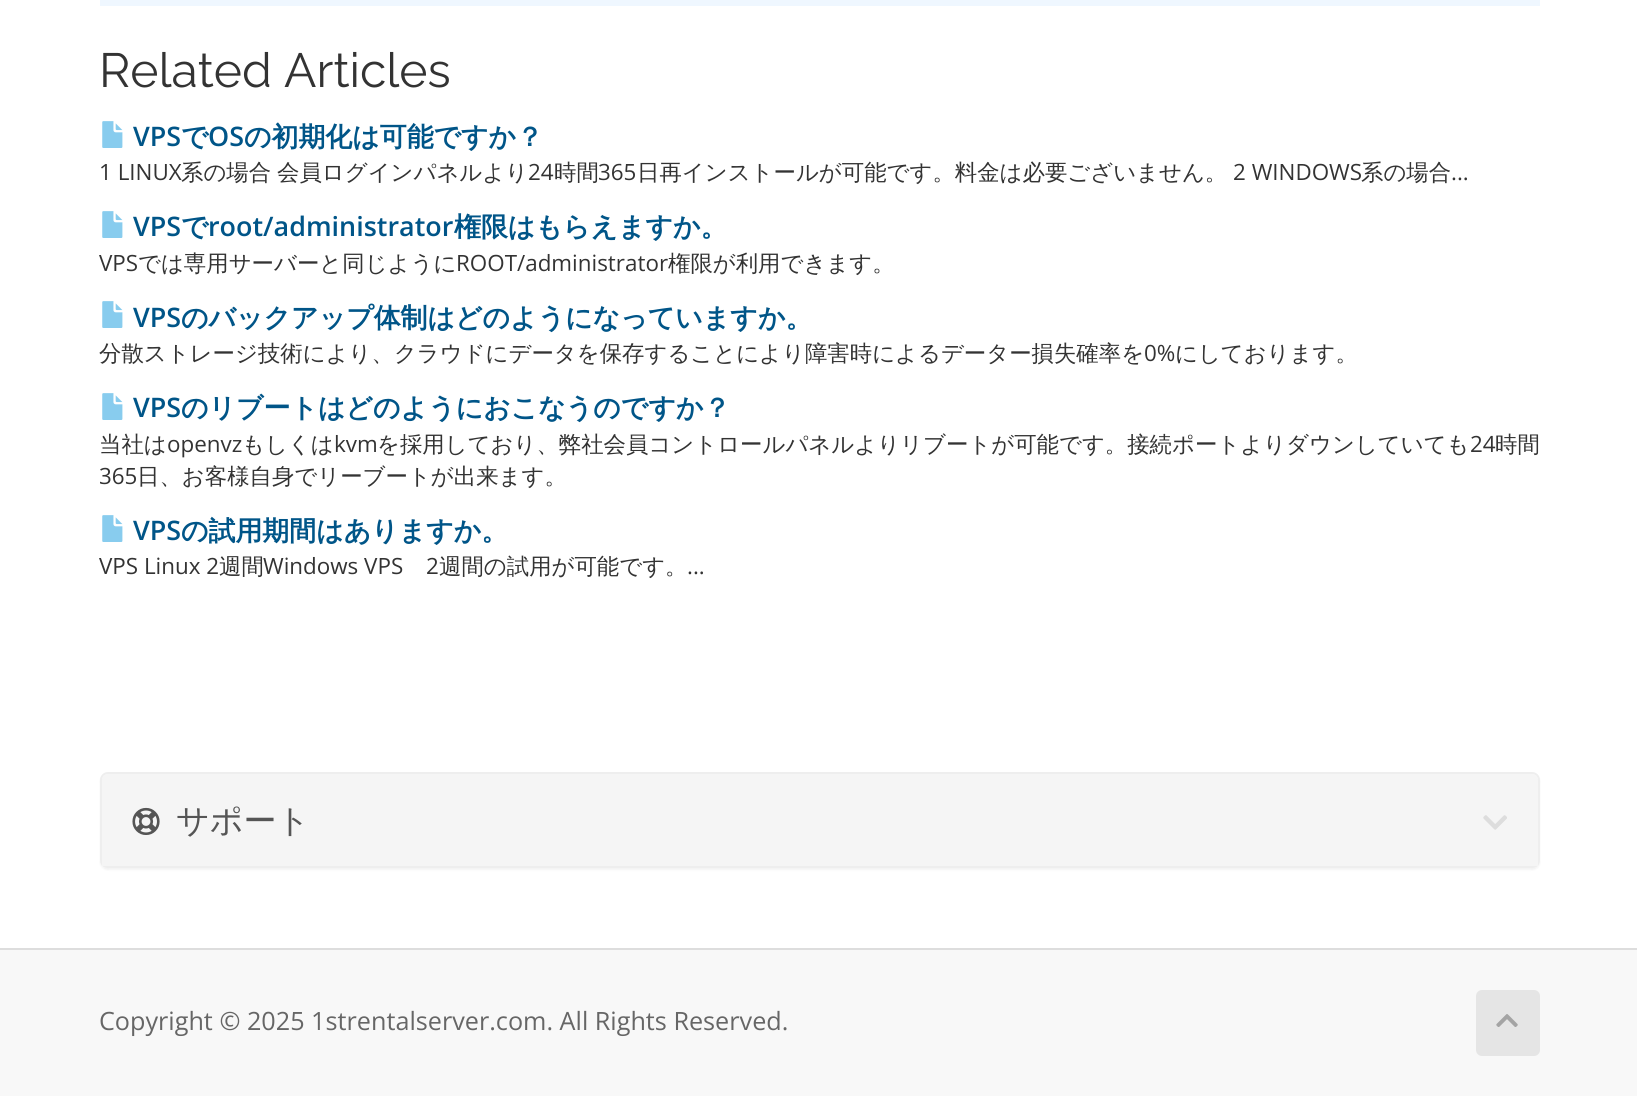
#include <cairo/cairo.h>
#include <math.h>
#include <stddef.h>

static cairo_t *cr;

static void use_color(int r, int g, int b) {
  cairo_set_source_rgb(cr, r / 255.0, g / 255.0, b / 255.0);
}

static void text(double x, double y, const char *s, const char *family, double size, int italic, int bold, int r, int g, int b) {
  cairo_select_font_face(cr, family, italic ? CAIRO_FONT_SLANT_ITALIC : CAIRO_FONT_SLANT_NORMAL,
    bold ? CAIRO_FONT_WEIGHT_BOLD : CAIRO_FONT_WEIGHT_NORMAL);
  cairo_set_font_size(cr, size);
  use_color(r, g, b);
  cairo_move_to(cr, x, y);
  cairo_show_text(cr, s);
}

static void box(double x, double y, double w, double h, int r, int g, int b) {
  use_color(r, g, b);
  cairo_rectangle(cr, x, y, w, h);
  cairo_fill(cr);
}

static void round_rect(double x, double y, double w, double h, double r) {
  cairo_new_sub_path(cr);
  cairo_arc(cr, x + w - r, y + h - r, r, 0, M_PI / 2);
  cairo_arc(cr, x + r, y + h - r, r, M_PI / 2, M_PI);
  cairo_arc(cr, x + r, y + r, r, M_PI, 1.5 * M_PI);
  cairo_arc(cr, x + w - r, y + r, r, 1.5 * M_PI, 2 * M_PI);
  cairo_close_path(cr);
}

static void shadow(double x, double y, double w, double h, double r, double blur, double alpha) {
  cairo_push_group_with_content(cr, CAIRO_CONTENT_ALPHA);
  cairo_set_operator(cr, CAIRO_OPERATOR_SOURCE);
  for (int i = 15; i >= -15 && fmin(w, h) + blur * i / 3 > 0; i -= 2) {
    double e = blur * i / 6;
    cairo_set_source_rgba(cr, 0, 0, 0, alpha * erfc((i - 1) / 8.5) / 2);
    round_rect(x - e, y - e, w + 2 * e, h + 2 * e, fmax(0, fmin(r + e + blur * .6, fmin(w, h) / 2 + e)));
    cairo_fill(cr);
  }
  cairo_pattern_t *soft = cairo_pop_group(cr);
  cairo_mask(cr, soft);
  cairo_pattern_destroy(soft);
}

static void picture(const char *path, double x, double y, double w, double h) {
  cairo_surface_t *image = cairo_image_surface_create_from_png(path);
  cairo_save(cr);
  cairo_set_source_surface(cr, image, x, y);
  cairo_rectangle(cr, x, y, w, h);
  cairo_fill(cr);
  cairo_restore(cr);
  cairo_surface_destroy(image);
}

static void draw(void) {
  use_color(248, 248, 248);
  cairo_paint(cr);
  box(0, 0, 1637, 948, 255, 255, 255);
  box(100, 0, 1440, 6, 239, 247, 255);
  picture("img_01.png", 102, 121, 21, 27);
  picture("img_01.png", 102, 211, 21, 27);
  picture("img_01.png", 102, 301, 21, 27);
  picture("img_01.png", 102, 393, 21, 27);
  picture("img_01.png", 102, 515, 21, 27);
  use_color(0, 0, 0);
  shadow(100, 774, 1440, 96, 8, 1, 0.05);
  round_rect(101, 773, 1438, 94, 7);
  use_color(238, 238, 238);
  cairo_stroke(cr);
  use_color(245, 245, 245);
  cairo_new_path(cr);
  cairo_move_to(cr, 108, 774);
  cairo_line_to(cr, 1532, 774);
  cairo_curve_to(cr, 1535.5, 774, 1538, 776.5, 1538, 780);
  cairo_line_to(cr, 1538, 866);
  cairo_line_to(cr, 102, 866);
  cairo_line_to(cr, 102, 780);
  cairo_curve_to(cr, 102, 776.5, 104.5, 774, 108, 774);
  cairo_close_path(cr);
  cairo_fill(cr);
  picture("img_02.png", 132, 807, 28, 28);
  picture("img_03.png", 1483, 815, 24, 15);
  box(0, 948, 1637, 2, 221, 221, 221);
  use_color(229, 229, 229);
  round_rect(1476, 990, 64, 66, 6);
  cairo_fill(cr);
  picture("img_04.png", 1496, 1014, 22, 13);
  text(99, 87, "Related Articles", "Raleway", 48, 0, 0, 51, 51, 51);
  text(133, 146, "VPS", "Open Sans SemiBold", 26.9, 0, 0, 0, 85, 136);
  text(181, 146, "で", "WenQuanYi Zen Hei", 26.9, 0, 1, 0, 85, 136);
  text(208, 146, "OS", "Open Sans SemiBold", 26.9, 0, 0, 0, 85, 136);
  text(244, 146, "の初期化は可能ですか？", "WenQuanYi Zen Hei", 26.9, 0, 1, 0, 85, 136);
  text(99, 180, "1 LINUX", "Open Sans", 22.4, 0, 0, 51, 51, 51);
  text(181, 180, "系の場合", "WenQuanYi Zen Hei Medium", 22.4, 0, 0, 51, 51, 51);
  text(277, 180, "会員ログインパネルより", "WenQuanYi Zen Hei Medium", 22.4, 0, 0, 51, 51, 51);
  text(528, 180, "24", "Open Sans", 22.4, 0, 0, 51, 51, 51);
  text(554, 180, "時間", "WenQuanYi Zen Hei Medium", 22.4, 0, 0, 51, 51, 51);
  text(598, 180, "365", "Open Sans", 22.4, 0, 0, 51, 51, 51);
  text(637, 180, "日再インストールが可能です。料金は必要ございません。", "WenQuanYi Zen Hei Medium", 22.4, 0, 0, 51, 51, 51);
  text(1233, 180, "2 WINDOWS", "Open Sans", 22.4, 0, 0, 51, 51, 51);
  text(1361, 180, "系の場合", "WenQuanYi Zen Hei Medium", 22.4, 0, 0, 51, 51, 51);
  text(1451, 180, "...", "Open Sans", 22.4, 0, 0, 51, 51, 51);
  text(133, 236, "VPS", "Open Sans SemiBold", 26.9, 0, 0, 0, 85, 136);
  text(181, 236, "で", "WenQuanYi Zen Hei", 26.9, 0, 1, 0, 85, 136);
  text(208, 236, "root/administrator", "Open Sans SemiBold", 26.9, 0, 0, 0, 85, 136);
  text(454, 236, "権限はもらえますか。", "WenQuanYi Zen Hei", 26.9, 0, 1, 0, 85, 136);
  text(99, 271, "VPS", "Open Sans", 22.4, 0, 0, 51, 51, 51);
  text(138, 271, "では専用サーバーと同じように", "WenQuanYi Zen Hei Medium", 22.4, 0, 0, 51, 51, 51);
  text(456, 271, "ROOT/administrator", "Open Sans", 22.4, 0, 0, 51, 51, 51);
  text(668, 271, "権限が利用できます。", "WenQuanYi Zen Hei Medium", 22.4, 0, 0, 51, 51, 51);
  text(133, 327, "VPS", "Open Sans SemiBold", 26.9, 0, 0, 0, 85, 136);
  text(181, 327, "のバックアップ体制はどのようになっていますか。", "WenQuanYi Zen Hei", 26.9, 0, 1, 0, 85, 136);
  text(99, 361, "分散ストレージ技術により、クラウドにデータを保存することにより障害時によるデーター損失確率を", "WenQuanYi Zen Hei Medium", 22.4, 0, 0, 51, 51, 51);
  text(1144, 361, "0%", "Open Sans", 22.4, 0, 0, 51, 51, 51);
  text(1175, 361, "にしております。", "WenQuanYi Zen Hei Medium", 22.4, 0, 0, 51, 51, 51);
  text(133, 417, "VPS", "Open Sans SemiBold", 26.9, 0, 0, 0, 85, 136);
  text(181, 417, "のリブートはどのようにおこなうのですか？", "WenQuanYi Zen Hei", 26.9, 0, 1, 0, 85, 136);
  text(99, 452, "当社は", "WenQuanYi Zen Hei Medium", 22.4, 0, 0, 51, 51, 51);
  text(167, 452, "openvz", "Open Sans", 22.4, 0, 0, 51, 51, 51);
  text(242, 452, "もしくは", "WenQuanYi Zen Hei Medium", 22.4, 0, 0, 51, 51, 51);
  text(334, 452, "kvm", "Open Sans", 22.4, 0, 0, 51, 51, 51);
  text(377, 452, "を採用しており、弊社会員コントロールパネルよりリブートが可能です。接続ポートよりダウンしていても", "WenQuanYi Zen Hei Medium", 22.4, 0, 0, 51, 51, 51);
  text(1470, 452, "24", "Open Sans", 22.4, 0, 0, 51, 51, 51);
  text(1495, 452, "時間", "WenQuanYi Zen Hei Medium", 22.4, 0, 0, 51, 51, 51);
  text(99, 484, "365", "Open Sans", 22.4, 0, 0, 51, 51, 51);
  text(137, 484, "日、お客様自身でリーブートが出来ます。", "WenQuanYi Zen Hei Medium", 22.4, 0, 0, 51, 51, 51);
  text(133, 540, "VPS", "Open Sans SemiBold", 26.9, 0, 0, 0, 85, 136);
  text(181, 540, "の試用期間はありますか。", "WenQuanYi Zen Hei", 26.9, 0, 1, 0, 85, 136);
  text(99, 574, "VPS Linux 2", "Open Sans", 22.4, 0, 0, 51, 51, 51);
  text(219, 574, "週間", "WenQuanYi Zen Hei Medium", 22.4, 0, 0, 51, 51, 51);
  text(263, 574, "Windows VPS", "Open Sans", 22.4, 0, 0, 51, 51, 51);
  text(426, 574, "2", "Open Sans", 22.4, 0, 0, 51, 51, 51);
  text(439, 574, "週間の試用が可能です。", "WenQuanYi Zen Hei Medium", 22.4, 0, 0, 51, 51, 51);
  text(687, 574, "...", "Open Sans", 22.4, 0, 0, 51, 51, 51);
  text(176, 832, "サポート", "WenQuanYi Zen Hei Medium", 33, 0, 0, 85, 85, 85);
  text(99, 1030, "Copyright © 2025 1strentalserver.com. All Rights Reserved.", "Open Sans", 25.2, 0, 0, 102, 102, 102);
}

int main(void) {
  cairo_surface_t *surface = cairo_image_surface_create(CAIRO_FORMAT_RGB24, 1637, 1096);
  cr = cairo_create(surface);
  cairo_font_options_t *options = cairo_font_options_create();
  cairo_font_options_set_hint_metrics(options, CAIRO_HINT_METRICS_OFF);
  cairo_font_options_set_hint_style(options, CAIRO_HINT_STYLE_NONE);
  cairo_set_font_options(cr, options);
  cairo_set_miter_limit(cr, 4);
  draw();
  cairo_surface_write_to_png(surface, "out.png");
  cairo_font_options_destroy(options);
  cairo_destroy(cr);
  cairo_surface_destroy(surface);
  return 0;
}
